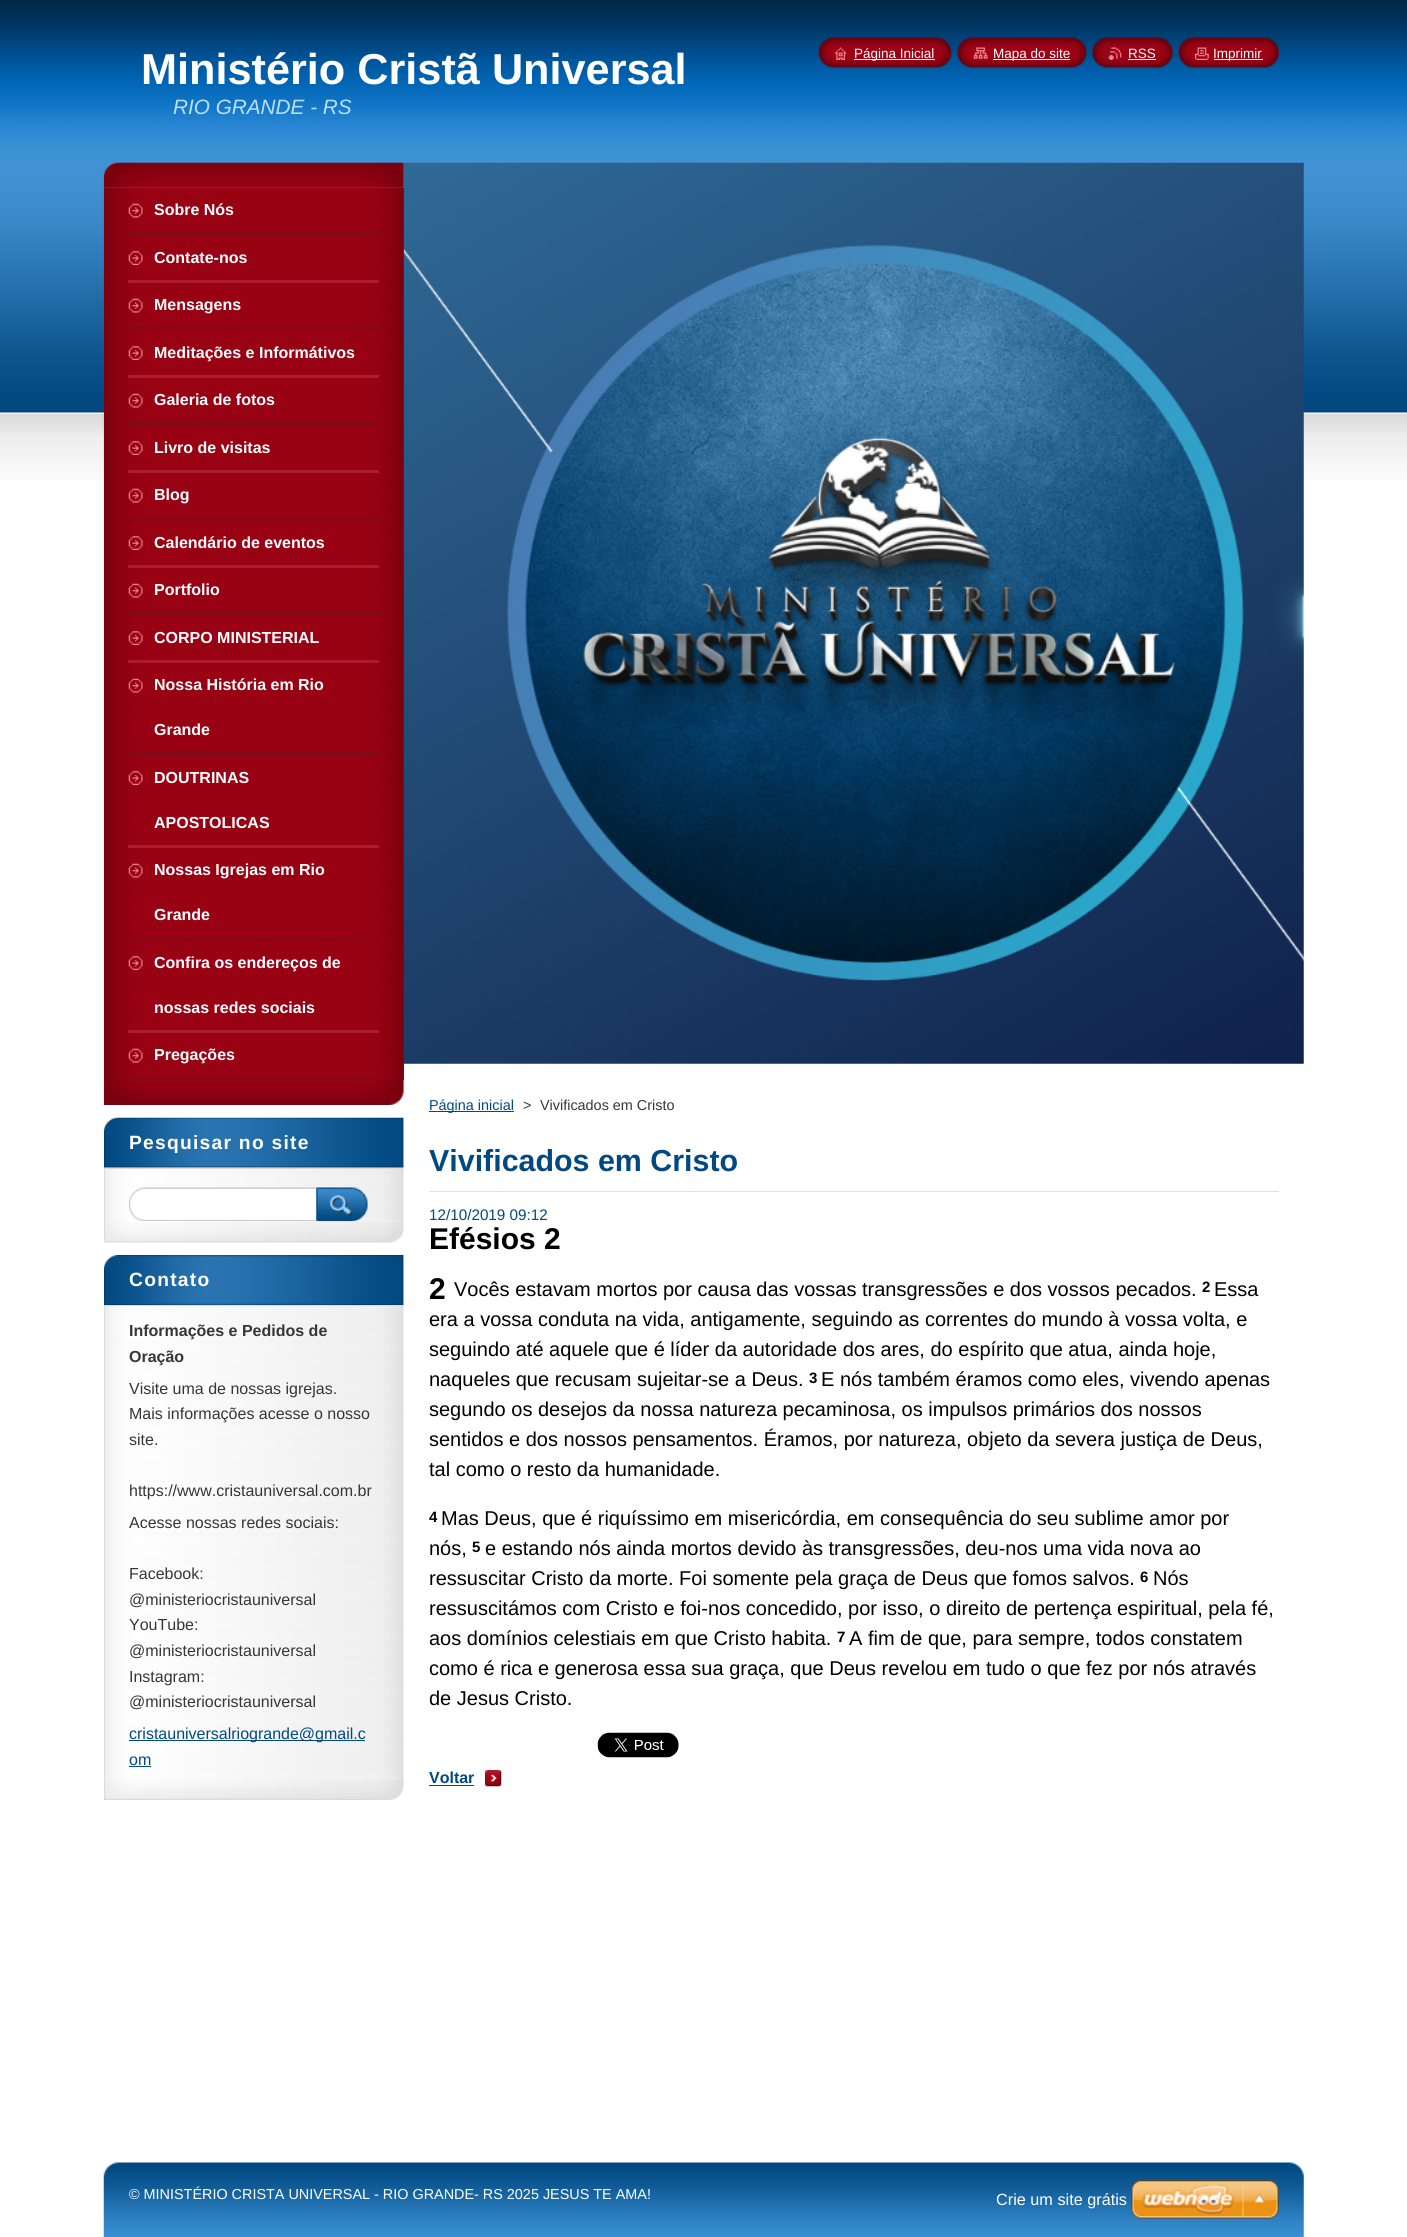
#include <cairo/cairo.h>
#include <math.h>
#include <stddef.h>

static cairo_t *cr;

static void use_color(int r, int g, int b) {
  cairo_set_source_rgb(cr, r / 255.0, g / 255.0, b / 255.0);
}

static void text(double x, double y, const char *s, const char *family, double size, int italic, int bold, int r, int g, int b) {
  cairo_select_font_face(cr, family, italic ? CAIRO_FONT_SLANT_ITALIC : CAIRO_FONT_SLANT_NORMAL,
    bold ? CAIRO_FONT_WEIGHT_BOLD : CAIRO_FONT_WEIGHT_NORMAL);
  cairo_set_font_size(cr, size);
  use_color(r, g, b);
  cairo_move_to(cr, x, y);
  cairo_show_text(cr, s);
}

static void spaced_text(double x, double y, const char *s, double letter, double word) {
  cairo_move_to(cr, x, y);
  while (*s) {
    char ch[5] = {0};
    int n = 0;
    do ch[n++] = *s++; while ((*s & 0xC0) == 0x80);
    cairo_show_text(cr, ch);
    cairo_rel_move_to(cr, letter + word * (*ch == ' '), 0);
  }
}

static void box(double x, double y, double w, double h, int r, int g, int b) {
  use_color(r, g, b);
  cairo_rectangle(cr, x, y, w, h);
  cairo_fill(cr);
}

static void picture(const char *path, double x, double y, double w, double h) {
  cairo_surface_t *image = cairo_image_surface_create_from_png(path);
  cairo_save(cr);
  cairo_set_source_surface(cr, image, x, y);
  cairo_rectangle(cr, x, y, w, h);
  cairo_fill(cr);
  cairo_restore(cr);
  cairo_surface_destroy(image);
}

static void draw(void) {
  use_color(255, 255, 255);
  cairo_paint(cr);
  picture("img_01.png", 0, 0, 1407, 480);
  picture("img_02.png", 818, 37, 17, 31);
  picture("img_03.png", 835, 37, 117, 31);
  picture("img_04.png", 835, 47, 12, 13);
  box(854, 59, 81, 1, 255, 255, 255);
  picture("img_05.png", 957, 37, 17, 31);
  picture("img_06.png", 973, 37, 114, 31);
  picture("img_07.png", 973, 47, 15, 12);
  box(993, 59, 77, 1, 255, 255, 255);
  picture("img_05.png", 1092, 37, 17, 31);
  picture("img_08.png", 1108, 37, 65, 31);
  picture("img_09.png", 1108, 47, 14, 13);
  box(1128, 59, 28, 1, 255, 255, 255);
  picture("img_10.png", 1178, 37, 17, 31);
  picture("img_11.png", 1195, 37, 84, 31);
  picture("img_12.png", 1195, 47, 14, 13);
  box(1214, 59, 49, 1, 255, 255, 255);
  picture("img_13.png", 103, 162, 301, 26);
  picture("img_14.png", 103, 1080, 301, 25);
  box(403, 188, 1, 892, 157, 2, 20);
  picture("img_15.png", 103, 187, 301, 893);
  box(128, 232, 251, 3, 129, 10, 25);
  picture("img_16.png", 128, 203, 15, 15);
  box(128, 280, 251, 3, 170, 29, 46);
  picture("img_17.png", 128, 251, 15, 14);
  box(128, 327, 251, 3, 129, 10, 25);
  picture("img_18.png", 128, 298, 15, 15);
  box(128, 375, 251, 3, 170, 29, 46);
  picture("img_19.png", 128, 346, 15, 14);
  box(128, 422, 251, 3, 129, 10, 25);
  picture("img_20.png", 128, 393, 15, 15);
  box(128, 470, 251, 3, 170, 29, 46);
  picture("img_21.png", 128, 441, 15, 14);
  box(128, 517, 251, 3, 129, 10, 25);
  picture("img_22.png", 128, 488, 15, 15);
  box(128, 565, 251, 3, 170, 29, 46);
  picture("img_23.png", 128, 536, 15, 14);
  box(128, 612, 251, 3, 129, 10, 25);
  picture("img_24.png", 128, 583, 15, 15);
  box(128, 660, 251, 3, 170, 29, 46);
  picture("img_25.png", 128, 631, 15, 14);
  box(128, 752, 251, 3, 129, 10, 25);
  picture("img_16.png", 128, 678, 15, 15);
  box(128, 845, 251, 3, 170, 29, 46);
  picture("img_19.png", 128, 771, 15, 14);
  box(128, 937, 251, 3, 129, 10, 25);
  picture("img_22.png", 128, 863, 15, 15);
  box(128, 1030, 251, 3, 170, 29, 46);
  picture("img_25.png", 128, 956, 15, 14);
  box(128, 1077, 251, 3, 129, 10, 25);
  picture("img_18.png", 128, 1048, 15, 15);
  picture("img_26.png", 104, 1221, 300, 22);
  picture("img_28.png", 104, 1167, 300, 54);
  picture("img_27.png", 104, 1117, 300, 51);
  box(104, 1168, 300, 1, 219, 219, 219);
  picture("img_29.png", 129, 1187, 189, 34);
  picture("img_30.png", 316, 1187, 52, 35);
  picture("img_31.png", 104, 1778, 300, 22);
  picture("img_32.png", 104, 1255, 300, 50);
  picture("img_33.png", 104, 1306, 300, 473);
  box(104, 1305, 300, 1, 219, 219, 219);
  box(129, 1740, 236, 1, 2, 73, 129);
  box(129, 1766, 22, 1, 2, 73, 129);
  picture("img_34.png", 403, 162, 901, 902);
  box(429, 1111, 85, 1, 2, 73, 129);
  box(429, 1191, 850, 1, 225, 225, 225);
  picture("img_35.png", 597, 1732, 82, 26);
  picture("img_36.png", 485, 1770, 17, 17);
  box(429, 1785, 45, 1, 2, 73, 129);
  picture("img_37.png", 103, 2162, 1201, 75);
  picture("img_38.png", 1131, 2180, 148, 39);
  text(141, 84, "Ministério Cristã Universal", "Liberation Sans", 43.25, 0, 1, 255, 255, 255);
  text(173, 114, "RIO GRANDE - RS", "Liberation Sans", 20.75, 1, 0, 186, 224, 255);
  text(854, 58, "Página Inicial", "Liberation Sans", 13.5, 0, 0, 255, 255, 255);
  text(993, 58, "Mapa do site", "Liberation Sans", 13.5, 0, 0, 255, 255, 255);
  text(1128, 58, "RSS", "Liberation Sans", 13.5, 0, 0, 255, 255, 255);
  text(1213, 58, "Imprimir", "Liberation Sans", 13.5, 0, 0, 255, 255, 255);
  text(154, 215, "Sobre Nós", "Liberation Sans", 16, 0, 1, 255, 255, 255);
  text(154, 263, "Contate-nos", "Liberation Sans", 16, 0, 1, 255, 255, 255);
  text(154, 310, "Mensagens", "Liberation Sans", 16, 0, 1, 255, 255, 255);
  text(154, 358, "Meditações e Informátivos", "Liberation Sans", 16, 0, 1, 255, 255, 255);
  text(154, 405, "Galeria de fotos", "Liberation Sans", 16, 0, 1, 255, 255, 255);
  text(154, 453, "Livro de visitas", "Liberation Sans", 16, 0, 1, 255, 255, 255);
  text(154, 500, "Blog", "Liberation Sans", 16, 0, 1, 255, 255, 255);
  text(154, 548, "Calendário de eventos", "Liberation Sans", 16, 0, 1, 255, 255, 255);
  text(154, 595, "Portfolio", "Liberation Sans", 16, 0, 1, 255, 255, 255);
  text(154, 643, "CORPO MINISTERIAL", "Liberation Sans", 16, 0, 1, 255, 255, 255);
  text(154, 690, "Nossa História em Rio", "Liberation Sans", 16, 0, 1, 255, 255, 255);
  text(154, 735, "Grande", "Liberation Sans", 16, 0, 1, 255, 255, 255);
  text(154, 783, "DOUTRINAS", "Liberation Sans", 16, 0, 1, 255, 255, 255);
  text(154, 828, "APOSTOLICAS", "Liberation Sans", 16, 0, 1, 255, 255, 255);
  text(154, 875, "Nossas Igrejas em Rio", "Liberation Sans", 16, 0, 1, 255, 255, 255);
  text(154, 920, "Grande", "Liberation Sans", 16, 0, 1, 255, 255, 255);
  text(154, 968, "Confira os endereços de", "Liberation Sans", 16, 0, 1, 255, 255, 255);
  text(154, 1013, "nossas redes sociais", "Liberation Sans", 16, 0, 1, 255, 255, 255);
  text(154, 1060, "Pregações", "Liberation Sans", 16, 0, 1, 255, 255, 255);
  cairo_set_font_size(cr, 19.25);
  spaced_text(129, 1149, "Pesquisar no site", 1.25, 0);
  spaced_text(129, 1286, "Contato", 1.25, 0);
  text(129, 1336, "Informações e Pedidos de", "Liberation Sans", 16, 0, 1, 54, 54, 54);
  text(129, 1362, "Oração", "Liberation Sans", 16, 0, 1, 54, 54, 54);
  text(129, 1394, "Visite uma de nossas igrejas.", "Liberation Sans", 16, 0, 0, 54, 54, 54);
  text(129, 1419, "Mais informações acesse o nosso", "Liberation Sans", 16, 0, 0, 54, 54, 54);
  text(129, 1445, "site.", "Liberation Sans", 16, 0, 0, 54, 54, 54);
  text(129, 1496, "https://www.cristauniversal.com.br", "Liberation Sans", 16, 0, 0, 54, 54, 54);
  text(129, 1528, "Acesse nossas redes sociais:", "Liberation Sans", 16, 0, 0, 54, 54, 54);
  text(129, 1579, "Facebook:", "Liberation Sans", 16, 0, 0, 54, 54, 54);
  text(129, 1605, "@ministeriocristauniversal", "Liberation Sans", 16, 0, 0, 54, 54, 54);
  text(129, 1630, "YouTube:", "Liberation Sans", 16, 0, 0, 54, 54, 54);
  text(129, 1656, "@ministeriocristauniversal", "Liberation Sans", 16, 0, 0, 54, 54, 54);
  text(129, 1682, "Instagram:", "Liberation Sans", 16, 0, 0, 54, 54, 54);
  text(129, 1707, "@ministeriocristauniversal", "Liberation Sans", 16, 0, 0, 54, 54, 54);
  text(129, 1739, "cristauniversalriogrande@gmail.c", "Liberation Sans", 16, 0, 0, 2, 73, 129);
  text(129, 1765, "om", "Liberation Sans", 16, 0, 0, 2, 73, 129);
  text(429, 1110, "Página inicial", "Liberation Sans", 14.4, 0, 0, 2, 73, 129);
  text(523, 1110, ">", "Liberation Sans", 14.4, 0, 0, 54, 54, 54);
  text(540, 1110, "Vivificados em Cristo", "Liberation Sans", 14.4, 0, 0, 54, 54, 54);
  text(429, 1171, "Vivificados em Cristo", "Liberation Sans", 30.4, 0, 1, 2, 73, 129);
  text(429, 1220, "12/10/2019 09:12", "Liberation Sans", 15.25, 0, 0, 2, 73, 129);
  text(429, 1249, "Efésios 2", "Liberation Sans", 30, 0, 1, 0, 0, 0);
  text(429, 1299, "2", "Liberation Sans", 30, 0, 1, 0, 0, 0);
  text(454, 1296, "Vocês estavam mortos por causa das vossas transgressões e dos vossos pecados.", "Liberation Sans", 20, 0, 0, 0, 0, 0);
  text(1202, 1292, "2", "Liberation Sans", 15, 0, 1, 0, 0, 0);
  text(1214, 1296, "Essa", "Liberation Sans", 20, 0, 0, 0, 0, 0);
  text(429, 1326, "era a vossa conduta na vida, antigamente, seguindo as correntes do mundo à vossa volta, e", "Liberation Sans", 20, 0, 0, 0, 0, 0);
  text(429, 1356, "seguindo até aquele que é líder da autoridade dos ares, do espírito que atua, ainda hoje,", "Liberation Sans", 20, 0, 0, 0, 0, 0);
  text(429, 1386, "naqueles que recusam sujeitar-se a Deus.", "Liberation Sans", 20, 0, 0, 0, 0, 0);
  text(809, 1383, "3", "Liberation Sans", 15, 0, 1, 0, 0, 0);
  text(821, 1386, "E nós também éramos como eles, vivendo apenas", "Liberation Sans", 20, 0, 0, 0, 0, 0);
  text(429, 1416, "segundo os desejos da nossa natureza pecaminosa, os impulsos primários dos nossos", "Liberation Sans", 20, 0, 0, 0, 0, 0);
  text(429, 1446, "sentidos e dos nossos pensamentos. Éramos, por natureza, objeto da severa justiça de Deus,", "Liberation Sans", 20, 0, 0, 0, 0, 0);
  text(429, 1476, "tal como o resto da humanidade.", "Liberation Sans", 20, 0, 0, 0, 0, 0);
  text(429, 1522, "4", "Liberation Sans", 15, 0, 1, 0, 0, 0);
  text(441, 1525, "Mas Deus, que é riquíssimo em misericórdia, em consequência do seu sublime amor por", "Liberation Sans", 20, 0, 0, 0, 0, 0);
  text(429, 1555, "nós,", "Liberation Sans", 20, 0, 0, 0, 0, 0);
  text(472, 1552, "5", "Liberation Sans", 15, 0, 1, 0, 0, 0);
  text(485, 1555, "e estando nós ainda mortos devido às transgressões, deu-nos uma vida nova ao", "Liberation Sans", 20, 0, 0, 0, 0, 0);
  text(429, 1585, "ressuscitar Cristo da morte. Foi somente pela graça de Deus que fomos salvos.", "Liberation Sans", 20, 0, 0, 0, 0, 0);
  text(1140, 1582, "6", "Liberation Sans", 15, 0, 1, 0, 0, 0);
  text(1153, 1585, "Nós", "Liberation Sans", 20, 0, 0, 0, 0, 0);
  text(429, 1615, "ressuscitámos com Cristo e foi-nos concedido, por isso, o direito de pertença espiritual, pela fé,", "Liberation Sans", 20, 0, 0, 0, 0, 0);
  text(429, 1645, "aos domínios celestiais em que Cristo habita.", "Liberation Sans", 20, 0, 0, 0, 0, 0);
  text(837, 1642, "7", "Liberation Sans", 15, 0, 1, 0, 0, 0);
  text(849, 1645, "A fim de que, para sempre, todos constatem", "Liberation Sans", 20, 0, 0, 0, 0, 0);
  text(429, 1675, "como é rica e generosa essa sua graça, que Deus revelou em tudo o que fez por nós através", "Liberation Sans", 20, 0, 0, 0, 0, 0);
  text(429, 1705, "de Jesus Cristo.", "Liberation Sans", 20, 0, 0, 0, 0, 0);
  text(429, 1783, "Voltar", "Liberation Sans", 16, 0, 1, 2, 73, 129);
  text(129, 2199, "© MINISTÉRIO CRISTA UNIVERSAL - RIO GRANDE- RS 2025 JESUS TE AMA!", "Liberation Sans", 14.4, 0, 0, 255, 255, 255);
  text(996, 2205, "Crie um site grátis", "Liberation Sans", 16.25, 0, 0, 255, 255, 255);
}

int main(void) {
  cairo_surface_t *surface = cairo_image_surface_create(CAIRO_FORMAT_RGB24, 1407, 2237);
  cr = cairo_create(surface);
  cairo_font_options_t *options = cairo_font_options_create();
  cairo_font_options_set_hint_metrics(options, CAIRO_HINT_METRICS_OFF);
  cairo_font_options_set_hint_style(options, CAIRO_HINT_STYLE_NONE);
  cairo_set_font_options(cr, options);
  cairo_set_miter_limit(cr, 4);
  draw();
  cairo_surface_write_to_png(surface, "out.png");
  cairo_font_options_destroy(options);
  cairo_destroy(cr);
  cairo_surface_destroy(surface);
  return 0;
}
